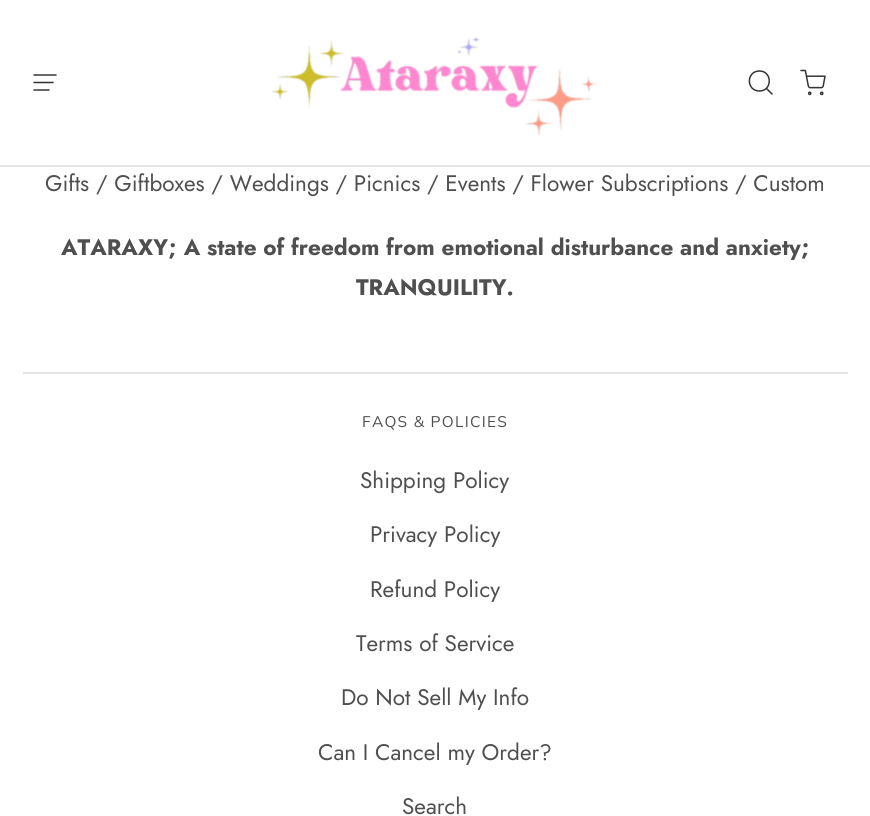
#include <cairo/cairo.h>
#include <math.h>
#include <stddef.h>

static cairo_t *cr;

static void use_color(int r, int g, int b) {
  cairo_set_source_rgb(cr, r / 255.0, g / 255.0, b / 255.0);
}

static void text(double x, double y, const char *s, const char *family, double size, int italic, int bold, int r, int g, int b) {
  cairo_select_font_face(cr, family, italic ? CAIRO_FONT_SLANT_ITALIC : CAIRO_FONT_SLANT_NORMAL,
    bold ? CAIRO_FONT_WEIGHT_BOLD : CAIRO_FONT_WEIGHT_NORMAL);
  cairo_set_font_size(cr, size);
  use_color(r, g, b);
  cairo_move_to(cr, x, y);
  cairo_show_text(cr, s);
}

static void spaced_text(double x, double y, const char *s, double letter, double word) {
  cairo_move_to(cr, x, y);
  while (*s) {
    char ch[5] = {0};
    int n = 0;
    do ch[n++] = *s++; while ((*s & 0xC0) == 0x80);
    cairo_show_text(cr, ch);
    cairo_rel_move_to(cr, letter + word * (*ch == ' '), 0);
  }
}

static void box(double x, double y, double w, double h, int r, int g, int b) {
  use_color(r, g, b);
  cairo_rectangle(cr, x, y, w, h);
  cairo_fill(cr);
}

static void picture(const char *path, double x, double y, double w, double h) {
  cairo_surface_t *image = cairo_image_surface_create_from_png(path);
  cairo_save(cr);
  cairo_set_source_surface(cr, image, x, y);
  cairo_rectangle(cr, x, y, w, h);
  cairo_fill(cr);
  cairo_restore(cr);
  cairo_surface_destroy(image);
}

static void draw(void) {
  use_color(255, 255, 255);
  cairo_paint(cr);
  box(0, 165, 870, 2, 229, 229, 229);
  cairo_new_path(cr);
  cairo_move_to(cr, 34, 75);
  cairo_line_to(cr, 56, 75);
  cairo_move_to(cr, 34, 82.5);
  cairo_line_to(cr, 53, 82.5);
  cairo_move_to(cr, 34, 90);
  cairo_line_to(cr, 49, 90);
  use_color(51, 51, 51);
  cairo_set_line_width(cr, 1.5);
  cairo_set_line_cap(cr, CAIRO_LINE_CAP_ROUND);
  cairo_set_line_join(cr, CAIRO_LINE_JOIN_ROUND);
  cairo_stroke(cr);
  picture("img_01.png", 271, 36, 326, 100);
  cairo_new_path(cr);
  cairo_move_to(cr, 759.5, 71);
  cairo_curve_to(cr, 746, 71, 746, 91, 759.5, 91);
  cairo_curve_to(cr, 772.5, 91, 772.5, 71, 759.5, 71);
  cairo_close_path(cr);
  cairo_move_to(cr, 772, 94);
  cairo_line_to(cr, 766.5, 88.5);
  cairo_close_path(cr);
  cairo_stroke(cr);
  picture("img_02.png", 800, 69, 26, 27);
  box(23, 372, 825, 2, 229, 229, 229);
  text(45, 191, "Gifts / Giftboxes / Weddings / Picnics / Events / Flower Subscriptions / Custom", "Jost", 22.5, 0, 0, 79, 79, 79);
  text(61, 255, "ATARAXY; A state of freedom from emotional disturbance and anxiety;", "Jost", 22.5, 0, 1, 79, 79, 79);
  text(356, 295, "TRANQUILITY.", "Jost", 22.5, 0, 1, 79, 79, 79);
  cairo_select_font_face(cr, "Muli", CAIRO_FONT_SLANT_NORMAL, CAIRO_FONT_WEIGHT_NORMAL);
  cairo_set_font_size(cr, 15.4);
  spaced_text(362, 427, "FAQS & POLICIES", 1.25, 0);
  text(360, 488, "Shipping Policy", "Jost", 22.5, 0, 0, 79, 79, 79);
  text(370, 542, "Privacy Policy", "Jost", 22.5, 0, 0, 79, 79, 79);
  text(370, 597, "Refund Policy", "Jost", 22.5, 0, 0, 79, 79, 79);
  text(356, 651, "Terms of Service", "Jost", 22.5, 0, 0, 79, 79, 79);
  text(341, 705, "Do Not Sell My Info", "Jost", 22.5, 0, 0, 79, 79, 79);
  text(318, 760, "Can I Cancel my Order?", "Jost", 22.5, 0, 0, 79, 79, 79);
  text(402, 814, "Search", "Jost", 22.5, 0, 0, 79, 79, 79);
}

int main(void) {
  cairo_surface_t *surface = cairo_image_surface_create(CAIRO_FORMAT_RGB24, 870, 816);
  cr = cairo_create(surface);
  cairo_font_options_t *options = cairo_font_options_create();
  cairo_font_options_set_hint_metrics(options, CAIRO_HINT_METRICS_OFF);
  cairo_font_options_set_hint_style(options, CAIRO_HINT_STYLE_NONE);
  cairo_set_font_options(cr, options);
  cairo_set_miter_limit(cr, 4);
  draw();
  cairo_surface_write_to_png(surface, "out.png");
  cairo_font_options_destroy(options);
  cairo_destroy(cr);
  cairo_surface_destroy(surface);
  return 0;
}
